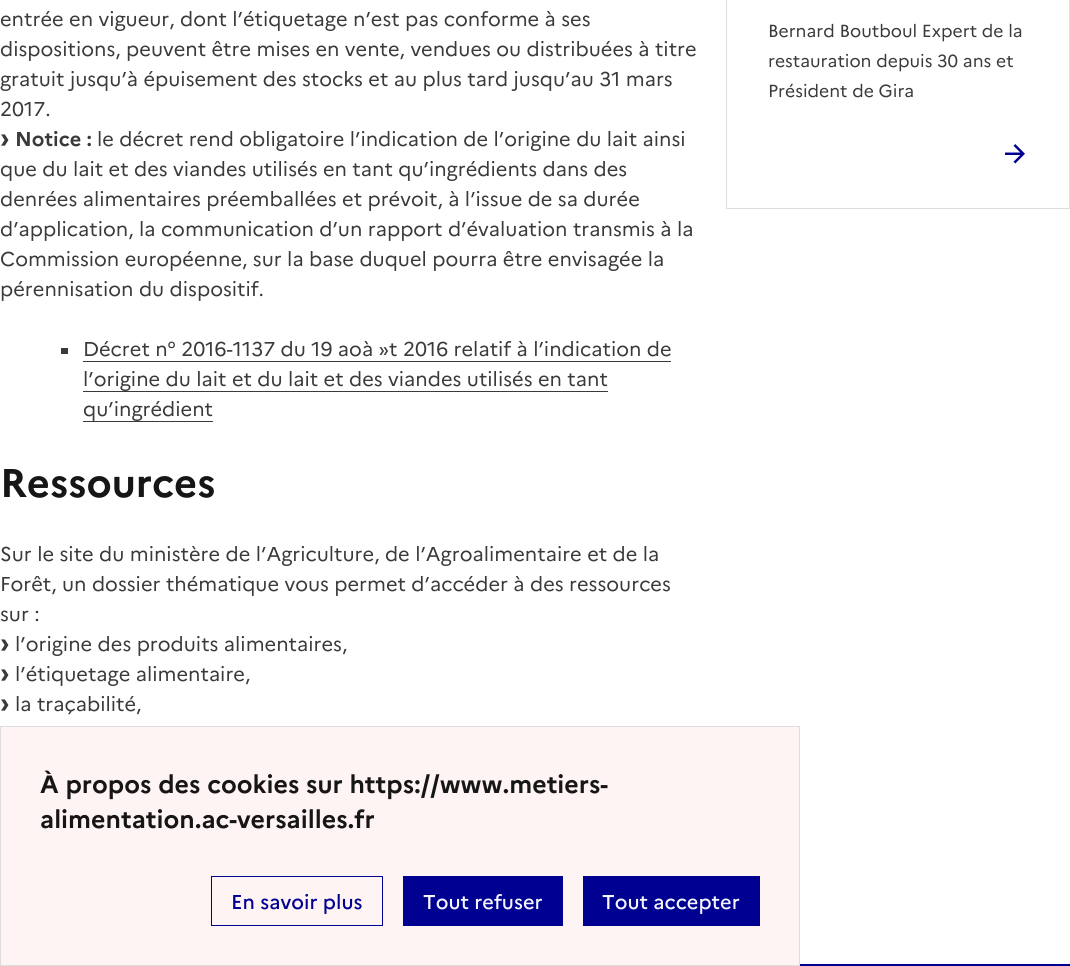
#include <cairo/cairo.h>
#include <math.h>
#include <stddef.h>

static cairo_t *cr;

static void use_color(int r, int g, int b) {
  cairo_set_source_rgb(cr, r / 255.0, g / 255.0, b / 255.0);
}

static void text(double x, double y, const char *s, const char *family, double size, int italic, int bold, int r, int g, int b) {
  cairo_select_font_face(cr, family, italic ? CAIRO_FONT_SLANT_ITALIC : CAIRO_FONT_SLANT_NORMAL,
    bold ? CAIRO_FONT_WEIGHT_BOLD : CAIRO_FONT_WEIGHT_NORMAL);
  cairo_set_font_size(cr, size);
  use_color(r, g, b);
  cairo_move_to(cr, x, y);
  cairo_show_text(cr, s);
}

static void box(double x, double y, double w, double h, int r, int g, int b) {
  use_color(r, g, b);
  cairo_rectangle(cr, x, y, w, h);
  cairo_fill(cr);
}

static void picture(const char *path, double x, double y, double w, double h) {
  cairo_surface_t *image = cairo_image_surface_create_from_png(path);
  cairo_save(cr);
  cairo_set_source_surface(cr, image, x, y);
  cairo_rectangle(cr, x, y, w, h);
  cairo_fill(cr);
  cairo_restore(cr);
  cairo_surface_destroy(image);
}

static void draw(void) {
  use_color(255, 255, 255);
  cairo_paint(cr);
  box(61, 348, 7, 6, 58, 58, 58);
  box(83, 361, 588, 1, 58, 58, 58);
  box(83, 391, 525, 1, 58, 58, 58);
  box(83, 421, 130, 1, 58, 58, 58);
  box(1069, 0, 1, 209, 221, 221, 221);
  box(726, 0, 1, 209, 221, 221, 221);
  box(726, 208, 344, 1, 221, 221, 221);
  picture("img_01.png", 1005, 144, 20, 20);
  use_color(254, 244, 244);
  cairo_rectangle(cr, 0.5, 726.5, 799, 239);
  cairo_fill_preserve(cr);
  use_color(221, 221, 221);
  cairo_set_line_width(cr, 1);
  cairo_stroke(cr);
  cairo_rectangle(cr, 211.5, 876.5, 171, 49);
  use_color(0, 0, 145);
  cairo_stroke(cr);
  box(403, 876, 160, 50, 0, 0, 145);
  box(583, 876, 177, 50, 0, 0, 145);
  box(800, 964, 270, 2, 0, 0, 145);
  text(0, 26, "entrée en vigueur, dont l’étiquetage n’est pas conforme à ses", "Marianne", 20, 0, 0, 58, 58, 58);
  text(0, 56, "dispositions, peuvent être mises en vente, vendues ou distribuées à titre", "Marianne", 20, 0, 0, 58, 58, 58);
  text(0, 86, "gratuit jusqu’à épuisement des stocks et au plus tard jusqu’au 31 mars", "Marianne", 20, 0, 0, 58, 58, 58);
  text(0, 116, "2017.", "Marianne", 20, 0, 0, 58, 58, 58);
  text(0, 147, "›", "Marianne", 28, 0, 1, 58, 58, 58);
  text(15, 146, "Notice :", "Marianne", 20, 0, 1, 58, 58, 58);
  text(97, 146, "le décret rend obligatoire l’indication de l’origine du lait ainsi", "Marianne", 20, 0, 0, 58, 58, 58);
  text(0, 176, "que du lait et des viandes utilisés en tant qu’ingrédients dans des", "Marianne", 20, 0, 0, 58, 58, 58);
  text(0, 206, "denrées alimentaires préemballées et prévoit, à l’issue de sa durée", "Marianne", 20, 0, 0, 58, 58, 58);
  text(0, 236, "d’application, la communication d’un rapport d’évaluation transmis à la", "Marianne", 20, 0, 0, 58, 58, 58);
  text(0, 266, "Commission européenne, sur la base duquel pourra être envisagée la", "Marianne", 20, 0, 0, 58, 58, 58);
  text(0, 296, "pérennisation du dispositif.", "Marianne", 20, 0, 0, 58, 58, 58);
  text(83, 356, "Décret n° 2016-1137 du 19 aoà »t 2016 relatif à l’indication de", "Marianne", 20, 0, 0, 58, 58, 58);
  text(83, 386, "l’origine du lait et du lait et des viandes utilisés en tant", "Marianne", 20, 0, 0, 58, 58, 58);
  text(83, 416, "qu’ingrédient", "Marianne", 20, 0, 0, 58, 58, 58);
  text(0, 497, "Ressources", "Marianne", 40, 0, 1, 22, 22, 22);
  text(0, 561, "Sur le site du ministère de l’Agriculture, de l’Agroalimentaire et de la", "Marianne", 20, 0, 0, 58, 58, 58);
  text(0, 591, "Forêt, un dossier thématique vous permet d’accéder à des ressources", "Marianne", 20, 0, 0, 58, 58, 58);
  text(0, 621, "sur :", "Marianne", 20, 0, 0, 58, 58, 58);
  text(0, 652, "›", "Marianne", 28, 0, 1, 58, 58, 58);
  text(15, 651, "l’origine des produits alimentaires,", "Marianne", 20, 0, 0, 58, 58, 58);
  text(0, 682, "›", "Marianne", 28, 0, 1, 58, 58, 58);
  text(15, 681, "l’étiquetage alimentaire,", "Marianne", 20, 0, 0, 58, 58, 58);
  text(0, 712, "›", "Marianne", 28, 0, 1, 58, 58, 58);
  text(15, 711, "la traçabilité,", "Marianne", 20, 0, 0, 58, 58, 58);
  text(768, 37, "Bernard Boutboul Expert de la", "Marianne", 17.5, 0, 0, 58, 58, 58);
  text(768, 67, "restauration depuis 30 ans et", "Marianne", 17.5, 0, 0, 58, 58, 58);
  text(768, 97, "Président de Gira", "Marianne", 17.5, 0, 0, 58, 58, 58);
  text(40, 793, "À propos des cookies sur https://www.metiers-", "Marianne", 25, 0, 1, 22, 22, 22);
  text(40, 828, "alimentation.ac-versailles.fr", "Marianne", 25, 0, 1, 22, 22, 22);
  text(231, 909, "En savoir plus", "Marianne Medium", 20, 0, 0, 0, 0, 145);
  text(423, 909, "Tout refuser", "Marianne Medium", 20, 0, 0, 245, 245, 254);
  text(602, 909, "Tout accepter", "Marianne Medium", 20, 0, 0, 245, 245, 254);
}

int main(void) {
  cairo_surface_t *surface = cairo_image_surface_create(CAIRO_FORMAT_RGB24, 1070, 966);
  cr = cairo_create(surface);
  cairo_font_options_t *options = cairo_font_options_create();
  cairo_font_options_set_hint_metrics(options, CAIRO_HINT_METRICS_OFF);
  cairo_font_options_set_hint_style(options, CAIRO_HINT_STYLE_NONE);
  cairo_set_font_options(cr, options);
  cairo_set_miter_limit(cr, 4);
  draw();
  cairo_surface_write_to_png(surface, "out.png");
  cairo_font_options_destroy(options);
  cairo_destroy(cr);
  cairo_surface_destroy(surface);
  return 0;
}
